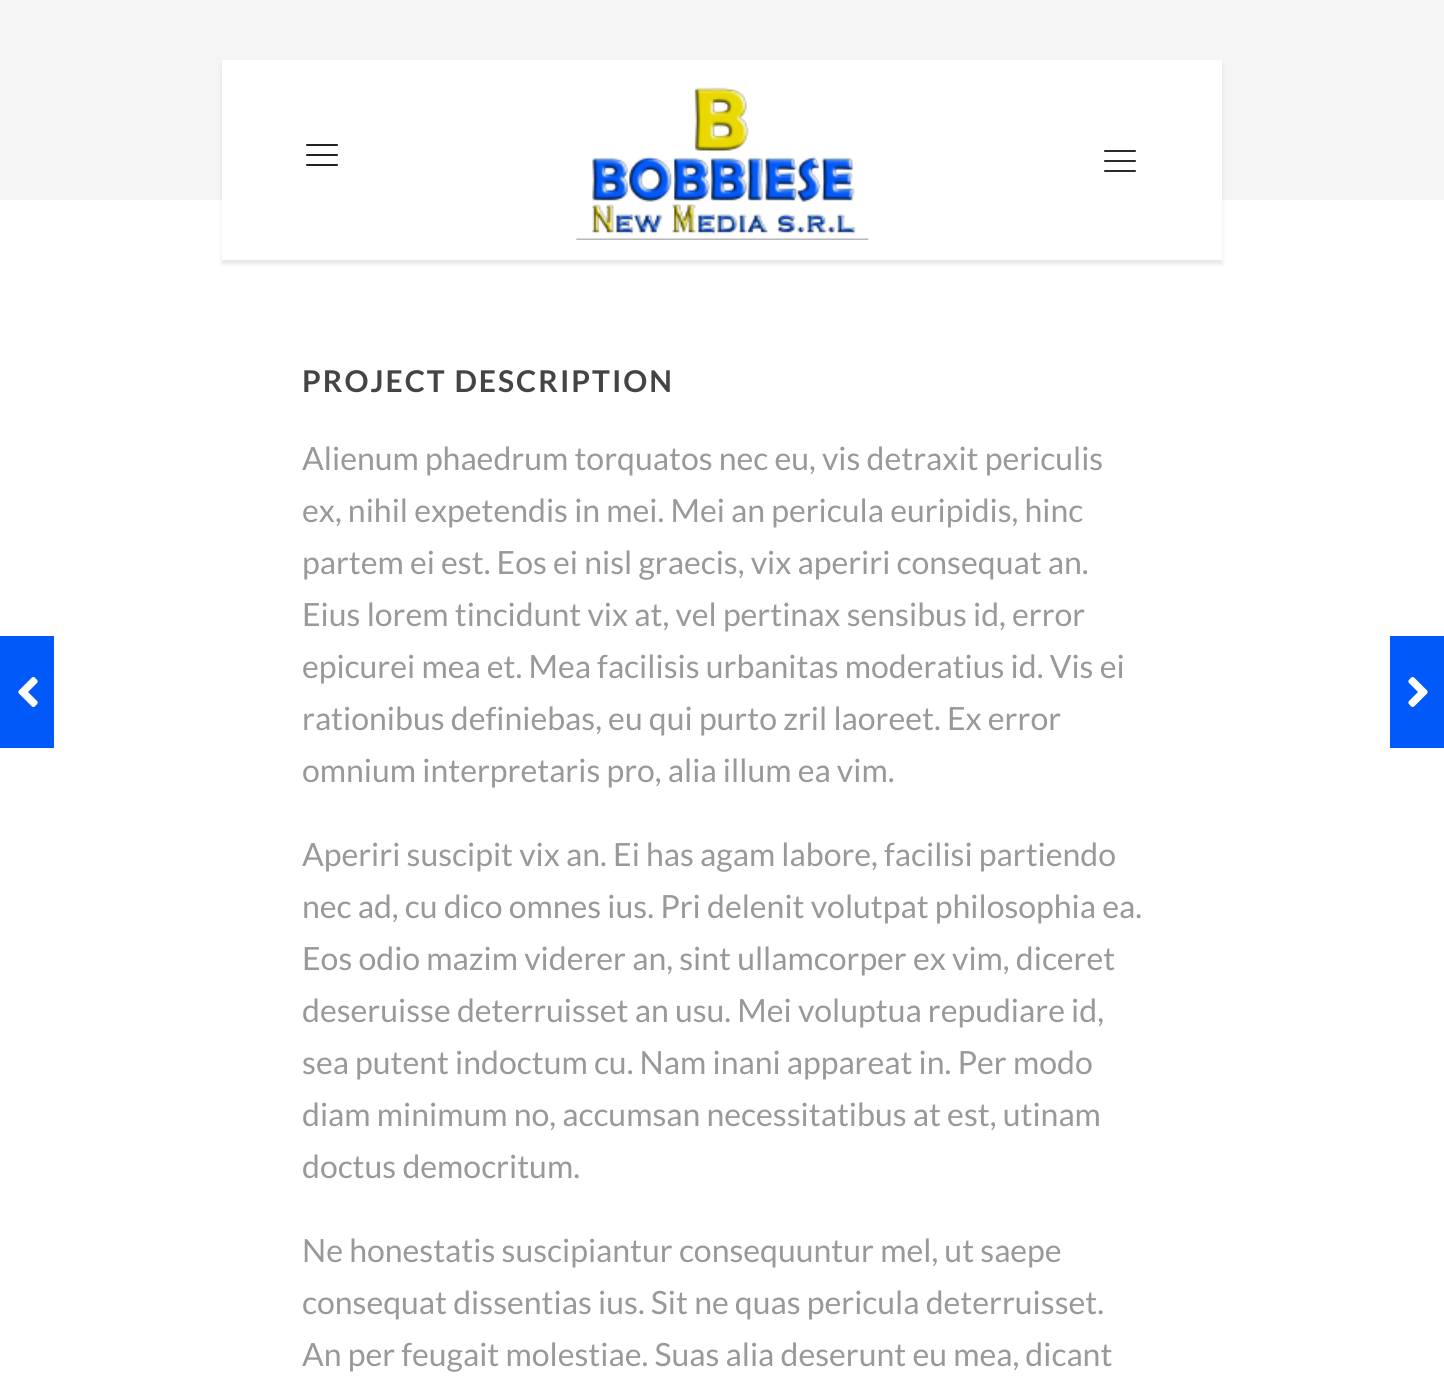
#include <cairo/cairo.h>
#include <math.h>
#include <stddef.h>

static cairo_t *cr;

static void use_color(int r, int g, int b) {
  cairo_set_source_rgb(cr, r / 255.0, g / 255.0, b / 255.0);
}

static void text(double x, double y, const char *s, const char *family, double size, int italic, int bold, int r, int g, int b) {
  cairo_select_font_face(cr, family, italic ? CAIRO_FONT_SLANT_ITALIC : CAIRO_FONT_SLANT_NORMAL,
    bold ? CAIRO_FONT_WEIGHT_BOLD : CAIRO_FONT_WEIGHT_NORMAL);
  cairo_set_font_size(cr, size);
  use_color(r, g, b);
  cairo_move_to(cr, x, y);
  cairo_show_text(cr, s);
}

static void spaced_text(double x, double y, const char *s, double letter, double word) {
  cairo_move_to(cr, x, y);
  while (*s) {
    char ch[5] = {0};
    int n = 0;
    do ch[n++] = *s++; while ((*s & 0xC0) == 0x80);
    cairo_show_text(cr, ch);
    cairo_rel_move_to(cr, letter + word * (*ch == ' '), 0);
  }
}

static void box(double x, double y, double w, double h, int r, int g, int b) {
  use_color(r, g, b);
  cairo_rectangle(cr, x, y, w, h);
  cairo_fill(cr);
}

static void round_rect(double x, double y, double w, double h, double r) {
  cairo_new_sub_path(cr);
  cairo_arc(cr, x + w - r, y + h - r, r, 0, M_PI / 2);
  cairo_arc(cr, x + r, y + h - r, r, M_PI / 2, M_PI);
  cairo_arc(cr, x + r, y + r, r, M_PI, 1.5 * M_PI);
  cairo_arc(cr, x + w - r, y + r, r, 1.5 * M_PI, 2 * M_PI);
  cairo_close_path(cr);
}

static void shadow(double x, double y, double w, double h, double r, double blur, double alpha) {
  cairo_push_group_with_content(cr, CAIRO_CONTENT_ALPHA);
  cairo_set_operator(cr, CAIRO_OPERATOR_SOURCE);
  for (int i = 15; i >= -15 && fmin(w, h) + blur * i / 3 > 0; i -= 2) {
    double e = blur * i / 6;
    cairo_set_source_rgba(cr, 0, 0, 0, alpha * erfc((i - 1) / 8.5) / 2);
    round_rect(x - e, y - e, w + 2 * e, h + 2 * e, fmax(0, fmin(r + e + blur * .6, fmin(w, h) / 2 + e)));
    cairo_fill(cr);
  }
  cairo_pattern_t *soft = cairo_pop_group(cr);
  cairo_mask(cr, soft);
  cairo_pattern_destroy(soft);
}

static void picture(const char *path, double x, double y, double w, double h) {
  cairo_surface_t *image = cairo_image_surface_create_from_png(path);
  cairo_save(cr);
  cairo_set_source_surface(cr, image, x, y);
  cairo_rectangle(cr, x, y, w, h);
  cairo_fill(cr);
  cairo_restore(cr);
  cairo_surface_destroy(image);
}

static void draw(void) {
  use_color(255, 255, 255);
  cairo_paint(cr);
  box(0, 0, 1444, 200, 245, 245, 245);
  use_color(0, 0, 0);
  shadow(222, 64, 1000, 200, 0, 2, 0.1);
  box(222, 60, 1000, 200, 255, 255, 255);
  picture("img_01.png", 306, 144, 32, 22);
  picture("img_02.png", 576, 87, 293, 153);
  picture("img_03.png", 1104, 150, 32, 22);
  box(0, 636, 54, 112, 0, 89, 248);
  picture("img_04.png", 18, 677, 20, 30);
  box(1390, 636, 54, 112, 0, 89, 248);
  picture("img_05.png", 1408, 677, 20, 30);
  cairo_select_font_face(cr, "Lato", CAIRO_FONT_SLANT_NORMAL, CAIRO_FONT_WEIGHT_BOLD);
  cairo_set_font_size(cr, 30);
  use_color(68, 68, 68);
  spaced_text(302, 392, "PROJECT DESCRIPTION", 2, 0);
  text(302, 470, "Alienum phaedrum torquatos nec eu, vis detraxit periculis", "Lato", 32, 0, 0, 153, 153, 153);
  text(302, 522, "ex, nihil expetendis in mei. Mei an pericula euripidis, hinc", "Lato", 32, 0, 0, 153, 153, 153);
  text(302, 574, "partem ei est. Eos ei nisl graecis, vix aperiri consequat an.", "Lato", 32, 0, 0, 153, 153, 153);
  text(302, 626, "Eius lorem tincidunt vix at, vel pertinax sensibus id, error", "Lato", 32, 0, 0, 153, 153, 153);
  text(302, 678, "epicurei mea et. Mea facilisis urbanitas moderatius id. Vis ei", "Lato", 32, 0, 0, 153, 153, 153);
  text(302, 730, "rationibus definiebas, eu qui purto zril laoreet. Ex error", "Lato", 32, 0, 0, 153, 153, 153);
  text(302, 782, "omnium interpretaris pro, alia illum ea vim.", "Lato", 32, 0, 0, 153, 153, 153);
  text(302, 866, "Aperiri suscipit vix an. Ei has agam labore, facilisi partiendo", "Lato", 32, 0, 0, 153, 153, 153);
  text(302, 918, "nec ad, cu dico omnes ius. Pri delenit volutpat philosophia ea.", "Lato", 32, 0, 0, 153, 153, 153);
  text(302, 970, "Eos odio mazim viderer an, sint ullamcorper ex vim, diceret", "Lato", 32, 0, 0, 153, 153, 153);
  text(302, 1022, "deseruisse deterruisset an usu. Mei voluptua repudiare id,", "Lato", 32, 0, 0, 153, 153, 153);
  text(302, 1074, "sea putent indoctum cu. Nam inani appareat in. Per modo", "Lato", 32, 0, 0, 153, 153, 153);
  text(302, 1126, "diam minimum no, accumsan necessitatibus at est, utinam", "Lato", 32, 0, 0, 153, 153, 153);
  text(302, 1178, "doctus democritum.", "Lato", 32, 0, 0, 153, 153, 153);
  text(302, 1262, "Ne honestatis suscipiantur consequuntur mel, ut saepe", "Lato", 32, 0, 0, 153, 153, 153);
  text(302, 1314, "consequat dissentias ius. Sit ne quas pericula deterruisset.", "Lato", 32, 0, 0, 153, 153, 153);
  text(302, 1366, "An per feugait molestiae. Suas alia deserunt eu mea, dicant", "Lato", 32, 0, 0, 153, 153, 153);
}

int main(void) {
  cairo_surface_t *surface = cairo_image_surface_create(CAIRO_FORMAT_RGB24, 1444, 1384);
  cr = cairo_create(surface);
  cairo_font_options_t *options = cairo_font_options_create();
  cairo_font_options_set_hint_metrics(options, CAIRO_HINT_METRICS_OFF);
  cairo_font_options_set_hint_style(options, CAIRO_HINT_STYLE_NONE);
  cairo_set_font_options(cr, options);
  cairo_set_miter_limit(cr, 4);
  draw();
  cairo_surface_write_to_png(surface, "out.png");
  cairo_font_options_destroy(options);
  cairo_destroy(cr);
  cairo_surface_destroy(surface);
  return 0;
}
